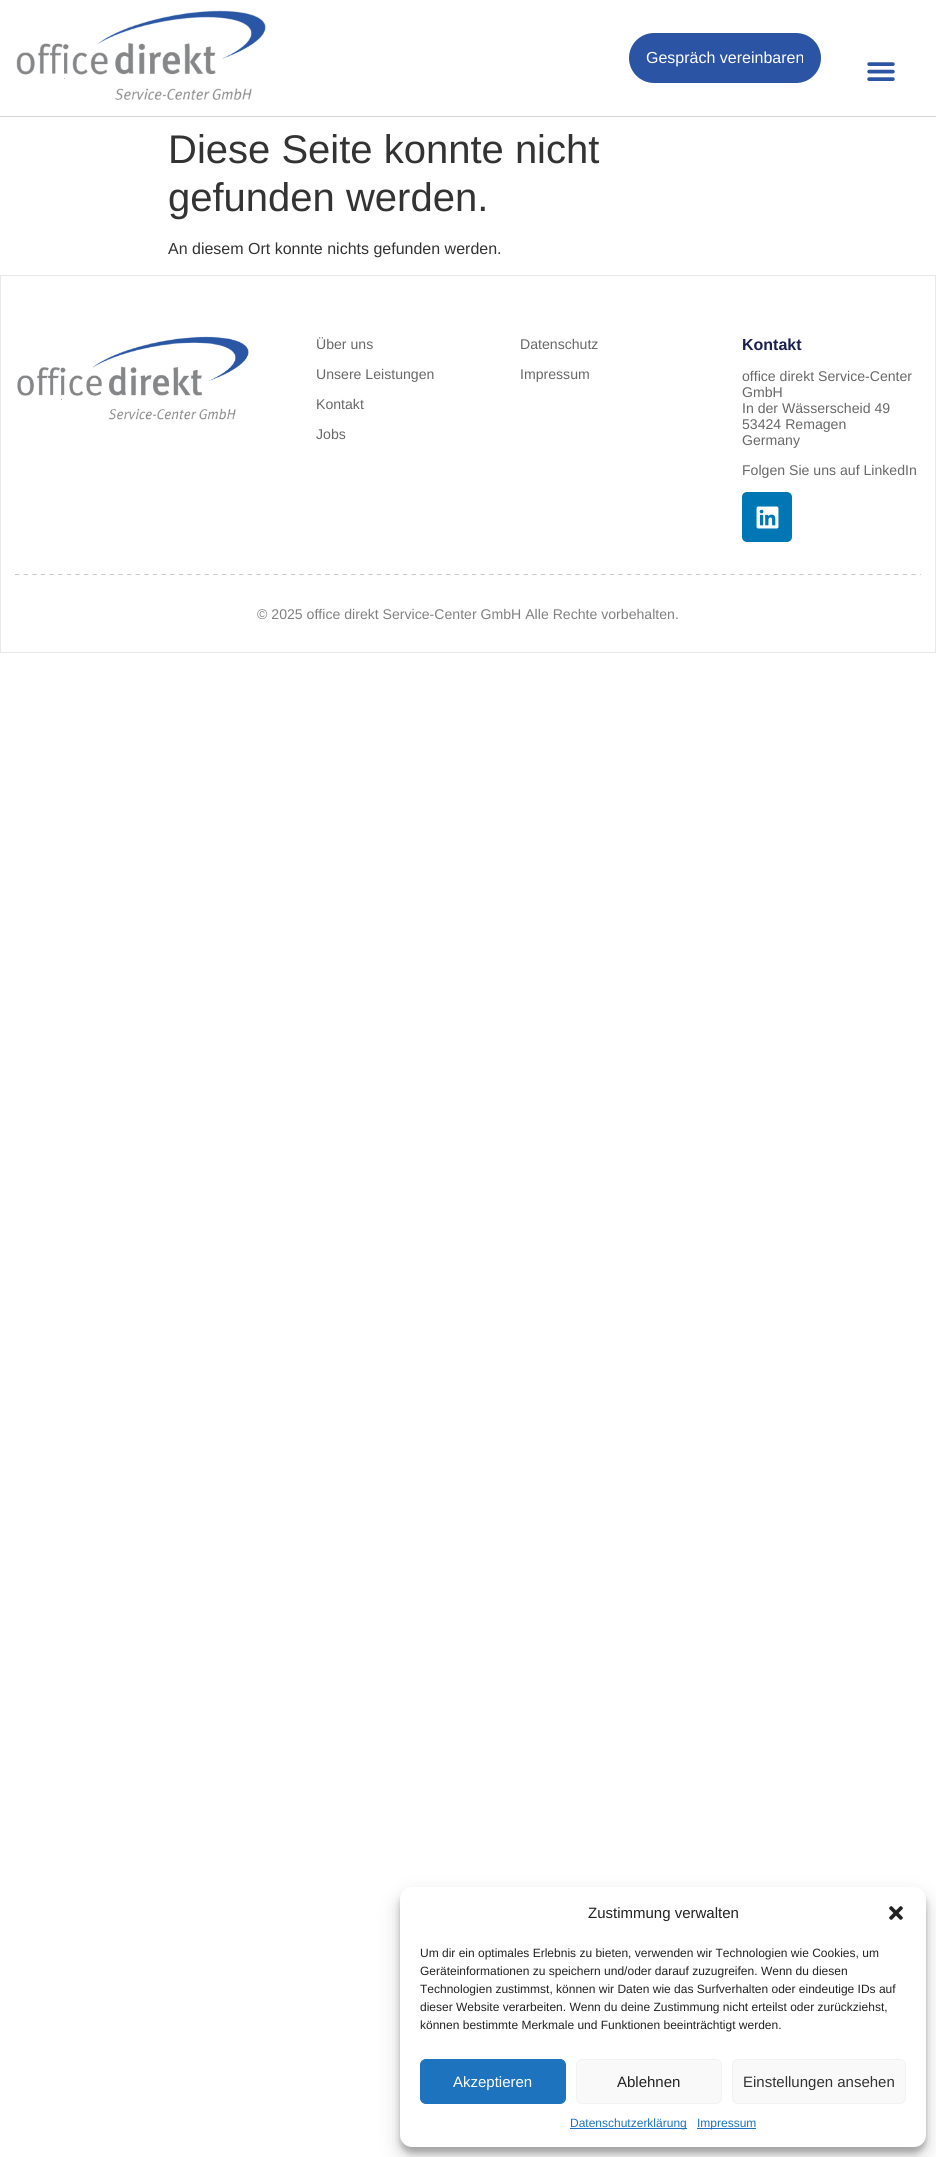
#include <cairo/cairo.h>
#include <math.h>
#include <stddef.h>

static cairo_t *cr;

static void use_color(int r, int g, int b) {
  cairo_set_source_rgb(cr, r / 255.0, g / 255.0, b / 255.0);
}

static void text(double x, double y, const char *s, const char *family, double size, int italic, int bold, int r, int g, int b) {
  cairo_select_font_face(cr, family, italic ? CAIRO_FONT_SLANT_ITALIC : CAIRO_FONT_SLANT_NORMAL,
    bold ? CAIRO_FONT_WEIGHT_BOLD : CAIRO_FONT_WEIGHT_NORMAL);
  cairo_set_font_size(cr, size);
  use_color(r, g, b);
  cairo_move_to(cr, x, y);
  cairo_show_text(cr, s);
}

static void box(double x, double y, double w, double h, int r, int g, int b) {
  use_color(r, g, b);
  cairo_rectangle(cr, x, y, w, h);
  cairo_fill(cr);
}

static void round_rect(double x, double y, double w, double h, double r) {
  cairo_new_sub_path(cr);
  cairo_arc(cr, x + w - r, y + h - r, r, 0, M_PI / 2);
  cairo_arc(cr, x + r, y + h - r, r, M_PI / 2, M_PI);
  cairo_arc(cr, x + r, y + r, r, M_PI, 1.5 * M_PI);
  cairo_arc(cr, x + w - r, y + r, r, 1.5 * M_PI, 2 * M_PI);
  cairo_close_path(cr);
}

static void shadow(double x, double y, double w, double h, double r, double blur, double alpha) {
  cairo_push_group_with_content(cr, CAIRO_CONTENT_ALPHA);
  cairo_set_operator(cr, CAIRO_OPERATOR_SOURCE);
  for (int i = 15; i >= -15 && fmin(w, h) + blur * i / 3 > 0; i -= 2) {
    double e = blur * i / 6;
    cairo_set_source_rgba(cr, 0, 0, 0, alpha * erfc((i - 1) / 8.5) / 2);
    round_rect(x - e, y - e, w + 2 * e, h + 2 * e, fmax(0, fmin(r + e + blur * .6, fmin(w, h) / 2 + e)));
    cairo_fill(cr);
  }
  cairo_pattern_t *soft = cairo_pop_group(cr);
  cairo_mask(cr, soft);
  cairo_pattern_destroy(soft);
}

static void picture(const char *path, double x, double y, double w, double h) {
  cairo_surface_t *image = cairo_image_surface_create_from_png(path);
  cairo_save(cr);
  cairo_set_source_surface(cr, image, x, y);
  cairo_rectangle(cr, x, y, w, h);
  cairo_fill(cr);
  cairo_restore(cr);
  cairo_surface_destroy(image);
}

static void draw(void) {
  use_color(255, 255, 255);
  cairo_paint(cr);
  box(0, 116, 936, 1, 214, 214, 214);
  picture("img_01.png", 16, 10, 250, 90);
  use_color(44, 84, 164);
  round_rect(629, 33, 192, 50, 25);
  cairo_fill(cr);
  picture("img_02.png", 867, 62, 28, 19);
  cairo_rectangle(cr, 0.5, 275.5, 935, 377);
  use_color(233, 233, 233);
  cairo_set_line_width(cr, 1);
  cairo_stroke(cr);
  picture("img_03.png", 17, 336, 232, 84);
  use_color(0, 119, 181);
  round_rect(742, 492, 50, 50, 5);
  cairo_fill(cr);
  picture("img_04.png", 756, 506, 23, 23);
  cairo_new_path(cr);
  cairo_move_to(cr, 15, 574.5);
  cairo_line_to(cr, 921, 574.5);
  use_color(179, 179, 179);
  cairo_set_line_width(cr, 0.7);
  cairo_set_dash(cr, (double[]){4.31, 4.31}, 2, 0);
  cairo_stroke(cr);
  use_color(0, 0, 0);
  shadow(400, 1893, 526, 260, 12, 3, 0.23);
  shadow(400, 1897, 526, 260, 12, 10, 0.19);
  use_color(255, 255, 255);
  round_rect(400, 1887, 526, 260, 12);
  cairo_fill(cr);
  picture("img_05.png", 889, 1906, 14, 14);
  use_color(30, 115, 190);
  round_rect(420.5, 2059.5, 145, 44, 5.5);
  cairo_fill_preserve(cr);
  cairo_set_line_width(cr, 1);
  cairo_set_dash(cr, NULL, 0, 0);
  cairo_stroke(cr);
  use_color(249, 249, 249);
  round_rect(576.5, 2059.5, 145, 44, 5.5);
  cairo_fill_preserve(cr);
  use_color(242, 242, 242);
  cairo_stroke(cr);
  use_color(249, 249, 249);
  round_rect(732.5, 2059.5, 173, 44, 5.5);
  cairo_fill_preserve(cr);
  use_color(242, 242, 242);
  cairo_stroke(cr);
  box(570, 2128, 117, 1, 30, 115, 190);
  box(697, 2128, 59, 1, 30, 115, 190);
  text(646, 63, "Gespräch vereinbaren", "Liberation Sans", 16, 0, 0, 255, 255, 255);
  text(168, 163, "Diese Seite konnte nicht", "Liberation Sans", 40, 0, 0, 51, 51, 51);
  text(168, 211, "gefunden werden.", "Liberation Sans", 40, 0, 0, 51, 51, 51);
  text(168, 254, "An diesem Ort konnte nichts gefunden werden.", "Liberation Sans", 16, 0, 0, 51, 51, 51);
  text(316, 349, "Über uns", "Liberation Sans", 14.1, 0, 0, 104, 104, 104);
  text(316, 379, "Unsere Leistungen", "Liberation Sans", 14.1, 0, 0, 104, 104, 104);
  text(316, 409, "Kontakt", "Liberation Sans", 14.1, 0, 0, 104, 104, 104);
  text(316, 439, "Jobs", "Liberation Sans", 14.1, 0, 0, 104, 104, 104);
  text(520, 349, "Datenschutz", "Liberation Sans", 14.1, 0, 0, 104, 104, 104);
  text(520, 379, "Impressum", "Liberation Sans", 14.1, 0, 0, 104, 104, 104);
  text(742, 350, "Kontakt", "Liberation Sans", 16, 0, 1, 27, 32, 80);
  text(742, 381, "office direkt Service-Center", "Liberation Sans", 14.1, 0, 0, 104, 104, 104);
  text(742, 397, "GmbH", "Liberation Sans", 14.1, 0, 0, 104, 104, 104);
  text(742, 413, "In der Wässerscheid 49", "Liberation Sans", 14.1, 0, 0, 104, 104, 104);
  text(742, 429, "53424 Remagen", "Liberation Sans", 14.1, 0, 0, 104, 104, 104);
  text(742, 445, "Germany", "Liberation Sans", 14.1, 0, 0, 104, 104, 104);
  text(742, 475, "Folgen Sie uns auf LinkedIn", "Liberation Sans", 14.1, 0, 0, 104, 104, 104);
  text(257, 619, "© 2025 office direkt Service-Center GmbH Alle Rechte vorbehalten.", "Liberation Sans", 14.1, 0, 0, 129, 129, 129);
  text(588, 1918, "Zustimmung verwalten", "Liberation Sans", 15, 0, 0, 34, 34, 34);
  text(420, 1957, "Um dir ein optimales Erlebnis zu bieten, verwenden wir Technologien wie Cookies, um", "Liberation Sans", 12, 0, 0, 34, 34, 34);
  text(420, 1975, "Geräteinformationen zu speichern und/oder darauf zuzugreifen. Wenn du diesen", "Liberation Sans", 12, 0, 0, 34, 34, 34);
  text(420, 1993, "Technologien zustimmst, können wir Daten wie das Surfverhalten oder eindeutige IDs auf", "Liberation Sans", 12, 0, 0, 34, 34, 34);
  text(420, 2011, "dieser Website verarbeiten. Wenn du deine Zustimmung nicht erteilst oder zurückziehst,", "Liberation Sans", 12, 0, 0, 34, 34, 34);
  text(420, 2029, "können bestimmte Merkmale und Funktionen beeinträchtigt werden.", "Liberation Sans", 12, 0, 0, 34, 34, 34);
  text(453, 2087, "Akzeptieren", "Liberation Sans", 15, 0, 0, 255, 255, 255);
  text(617, 2087, "Ablehnen", "Liberation Sans", 15, 0, 0, 34, 34, 34);
  text(743, 2087, "Einstellungen ansehen", "Liberation Sans", 15, 0, 0, 51, 51, 51);
  text(570, 2127, "Datenschutzerklärung", "Liberation Sans", 12, 0, 0, 30, 115, 190);
  text(697, 2127, "Impressum", "Liberation Sans", 12, 0, 0, 30, 115, 190);
}

int main(void) {
  cairo_surface_t *surface = cairo_image_surface_create(CAIRO_FORMAT_RGB24, 936, 2157);
  cr = cairo_create(surface);
  cairo_font_options_t *options = cairo_font_options_create();
  cairo_font_options_set_hint_metrics(options, CAIRO_HINT_METRICS_OFF);
  cairo_font_options_set_hint_style(options, CAIRO_HINT_STYLE_NONE);
  cairo_set_font_options(cr, options);
  cairo_set_miter_limit(cr, 4);
  draw();
  cairo_surface_write_to_png(surface, "out.png");
  cairo_font_options_destroy(options);
  cairo_destroy(cr);
  cairo_surface_destroy(surface);
  return 0;
}
